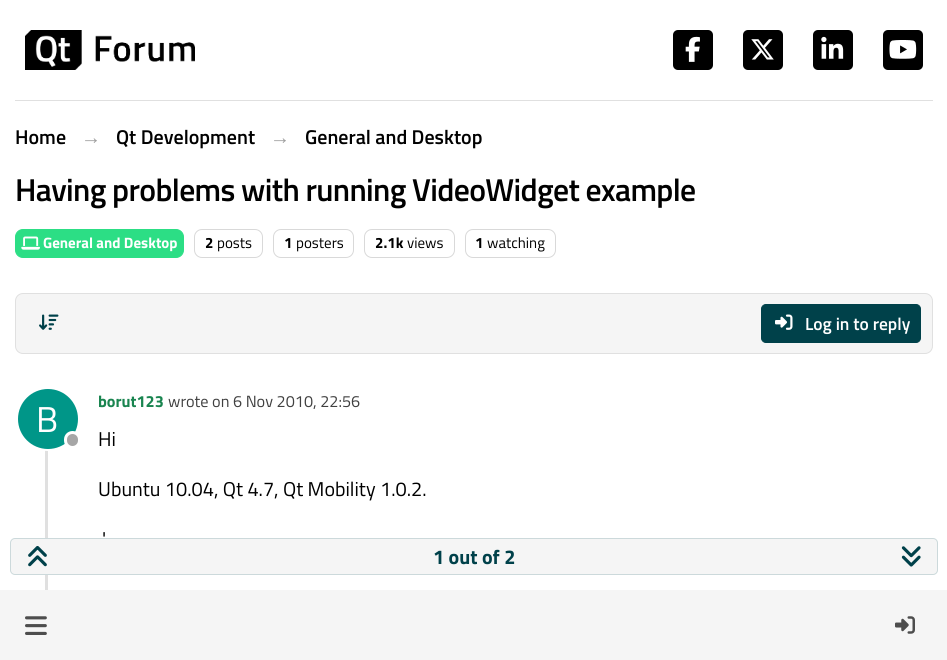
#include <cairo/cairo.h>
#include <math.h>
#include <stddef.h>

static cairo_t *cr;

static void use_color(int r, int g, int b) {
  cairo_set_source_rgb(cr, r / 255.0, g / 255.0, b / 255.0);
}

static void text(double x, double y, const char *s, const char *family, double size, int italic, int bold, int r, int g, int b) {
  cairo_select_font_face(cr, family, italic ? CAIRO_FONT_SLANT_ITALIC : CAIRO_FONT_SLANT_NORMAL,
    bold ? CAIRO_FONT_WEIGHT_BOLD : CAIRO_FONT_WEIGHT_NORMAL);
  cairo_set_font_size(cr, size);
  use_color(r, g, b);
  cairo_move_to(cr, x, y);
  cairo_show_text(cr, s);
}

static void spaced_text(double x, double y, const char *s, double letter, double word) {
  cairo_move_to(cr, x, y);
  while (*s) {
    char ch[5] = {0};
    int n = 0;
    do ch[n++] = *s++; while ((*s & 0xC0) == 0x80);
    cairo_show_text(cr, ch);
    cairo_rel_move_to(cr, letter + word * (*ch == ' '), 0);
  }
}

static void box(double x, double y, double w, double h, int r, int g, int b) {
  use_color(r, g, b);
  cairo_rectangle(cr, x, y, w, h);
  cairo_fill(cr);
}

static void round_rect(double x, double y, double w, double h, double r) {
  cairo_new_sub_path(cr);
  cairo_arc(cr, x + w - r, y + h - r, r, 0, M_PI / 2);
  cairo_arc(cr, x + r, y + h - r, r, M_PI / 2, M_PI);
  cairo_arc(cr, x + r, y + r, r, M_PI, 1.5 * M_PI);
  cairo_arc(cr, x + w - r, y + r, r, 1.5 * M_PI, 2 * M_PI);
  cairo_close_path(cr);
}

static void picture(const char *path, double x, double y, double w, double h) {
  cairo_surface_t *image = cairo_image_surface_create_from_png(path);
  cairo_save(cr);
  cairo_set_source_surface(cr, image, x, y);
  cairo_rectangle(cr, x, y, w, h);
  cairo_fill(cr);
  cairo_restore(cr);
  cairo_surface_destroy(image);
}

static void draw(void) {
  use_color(255, 255, 255);
  cairo_paint(cr);
  box(15, 100, 918, 1, 224, 224, 224);
  picture("img_01.png", 25, 30, 170, 40);
  use_color(0, 0, 0);
  round_rect(673, 30, 40, 40, 5);
  cairo_fill(cr);
  picture("img_02.png", 685, 36, 15, 26);
  round_rect(743, 30, 40, 40, 5);
  cairo_fill(cr);
  picture("img_03.png", 751, 39, 23, 21);
  round_rect(813, 30, 40, 40, 5);
  cairo_fill(cr);
  picture("img_04.png", 821, 36, 23, 23);
  round_rect(883, 30, 40, 40, 5);
  cairo_fill(cr);
  picture("img_05.png", 889, 40, 28, 19);
  use_color(44, 222, 133);
  round_rect(15.5, 229.5, 168, 28, 7.5);
  cairo_fill_preserve(cr);
  cairo_set_line_width(cr, 1);
  cairo_stroke(cr);
  picture("img_06.png", 21, 236, 19, 14);
  round_rect(194.5, 229.5, 68, 28, 7.5);
  use_color(217, 217, 217);
  cairo_stroke(cr);
  round_rect(273.5, 229.5, 80, 28, 7.5);
  cairo_stroke(cr);
  round_rect(364.5, 229.5, 90, 28, 7.5);
  cairo_stroke(cr);
  round_rect(465.5, 229.5, 90, 28, 7.5);
  cairo_stroke(cr);
  use_color(245, 245, 245);
  round_rect(15.5, 293.5, 917, 60, 7.5);
  cairo_fill_preserve(cr);
  use_color(224, 224, 224);
  cairo_stroke(cr);
  picture("img_07.png", 39, 314, 20, 16);
  use_color(0, 65, 74);
  round_rect(761.5, 304.5, 159, 38, 4.5);
  cairo_fill_preserve(cr);
  cairo_stroke(cr);
  picture("img_08.png", 775, 314, 18, 16);
  box(45, 389, 3, 201, 224, 224, 224);
  cairo_arc(cr, 47.5, 418.5, 31, 0, 2 * M_PI);
  use_color(255, 255, 255);
  cairo_set_line_width(cr, 3);
  cairo_stroke(cr);
  use_color(0, 150, 136);
  cairo_arc(cr, 48, 419, 30, 0, 2 * M_PI);
  cairo_fill(cr);
  use_color(166, 166, 166);
  round_rect(65.5, 432.5, 14, 15, 7);
  cairo_fill_preserve(cr);
  use_color(255, 255, 255);
  cairo_stroke(cr);
  use_color(245, 245, 245);
  round_rect(10.5, 538.5, 927, 36, 4.5);
  cairo_fill_preserve(cr);
  use_color(204, 217, 219);
  cairo_set_line_width(cr, 1);
  cairo_stroke(cr);
  picture("img_09.png", 28, 546, 19, 21);
  picture("img_10.png", 901, 546, 20, 21);
  box(0, 590, 947, 70, 245, 245, 245);
  picture("img_11.png", 25, 616, 22, 19);
  picture("img_12.png", 895, 616, 20, 18);
  text(15, 144, "Home", "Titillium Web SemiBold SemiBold", 20, 0, 0, 0, 0, 0);
  text(81, 144, "→", "Liberation Sans", 20, 0, 1, 158, 158, 158);
  text(116, 144, "Qt Development", "Titillium Web SemiBold SemiBold", 20, 0, 0, 0, 0, 0);
  text(270, 144, "→", "Liberation Sans", 20, 0, 1, 158, 158, 158);
  text(305, 144, "General and Desktop", "Titillium Web SemiBold SemiBold", 20, 0, 0, 0, 0, 0);
  cairo_set_font_size(cr, 31.7);
  spaced_text(15, 201, "Having problems with running VideoWidget example", -0.65, 0);
  text(43, 248, "General and Desktop", "Titillium Web", 15, 0, 1, 255, 255, 255);
  text(205, 248, "2", "Titillium Web", 15, 0, 1, 0, 0, 0);
  text(217, 248, "posts", "Titillium Web", 15, 0, 0, 0, 0, 0);
  text(284, 248, "1", "Titillium Web", 15, 0, 1, 0, 0, 0);
  text(296, 248, "posters", "Titillium Web", 15, 0, 0, 0, 0, 0);
  text(375, 248, "2.1k", "Titillium Web", 15, 0, 1, 0, 0, 0);
  text(407, 248, "views", "Titillium Web", 15, 0, 0, 0, 0, 0);
  text(475, 248, "1", "Titillium Web", 15, 0, 1, 0, 0, 0);
  text(487, 248, "watching", "Titillium Web", 15, 0, 0, 0, 0, 0);
  text(805, 330, "Log in to reply", "Titillium Web SemiBold SemiBold", 17.5, 0, 0, 255, 255, 255);
  text(36, 432, "B", "Titillium Web", 36, 0, 0, 255, 255, 255);
  text(98, 407, "borut123", "Titillium Web", 16.25, 0, 1, 26, 133, 80);
  text(168, 407, "wrote on 6 Nov 2010, 22:56", "Titillium Web", 16.25, 0, 0, 64, 64, 64);
  text(98, 446, "Hi", "Titillium Web", 20, 0, 0, 0, 0, 0);
  text(98, 496, "Ubuntu 10.04, Qt 4.7, Qt Mobility 1.0.2.", "Titillium Web", 20, 0, 0, 0, 0, 0);
  text(102, 546, "'", "Titillium Web", 20, 0, 0, 0, 0, 0);
  text(433, 564, "1 out of 2", "Titillium Web", 20, 0, 1, 0, 65, 74);
}

int main(void) {
  cairo_surface_t *surface = cairo_image_surface_create(CAIRO_FORMAT_RGB24, 947, 660);
  cr = cairo_create(surface);
  cairo_font_options_t *options = cairo_font_options_create();
  cairo_font_options_set_hint_metrics(options, CAIRO_HINT_METRICS_OFF);
  cairo_font_options_set_hint_style(options, CAIRO_HINT_STYLE_NONE);
  cairo_set_font_options(cr, options);
  cairo_set_miter_limit(cr, 4);
  draw();
  cairo_surface_write_to_png(surface, "out.png");
  cairo_font_options_destroy(options);
  cairo_destroy(cr);
  cairo_surface_destroy(surface);
  return 0;
}
